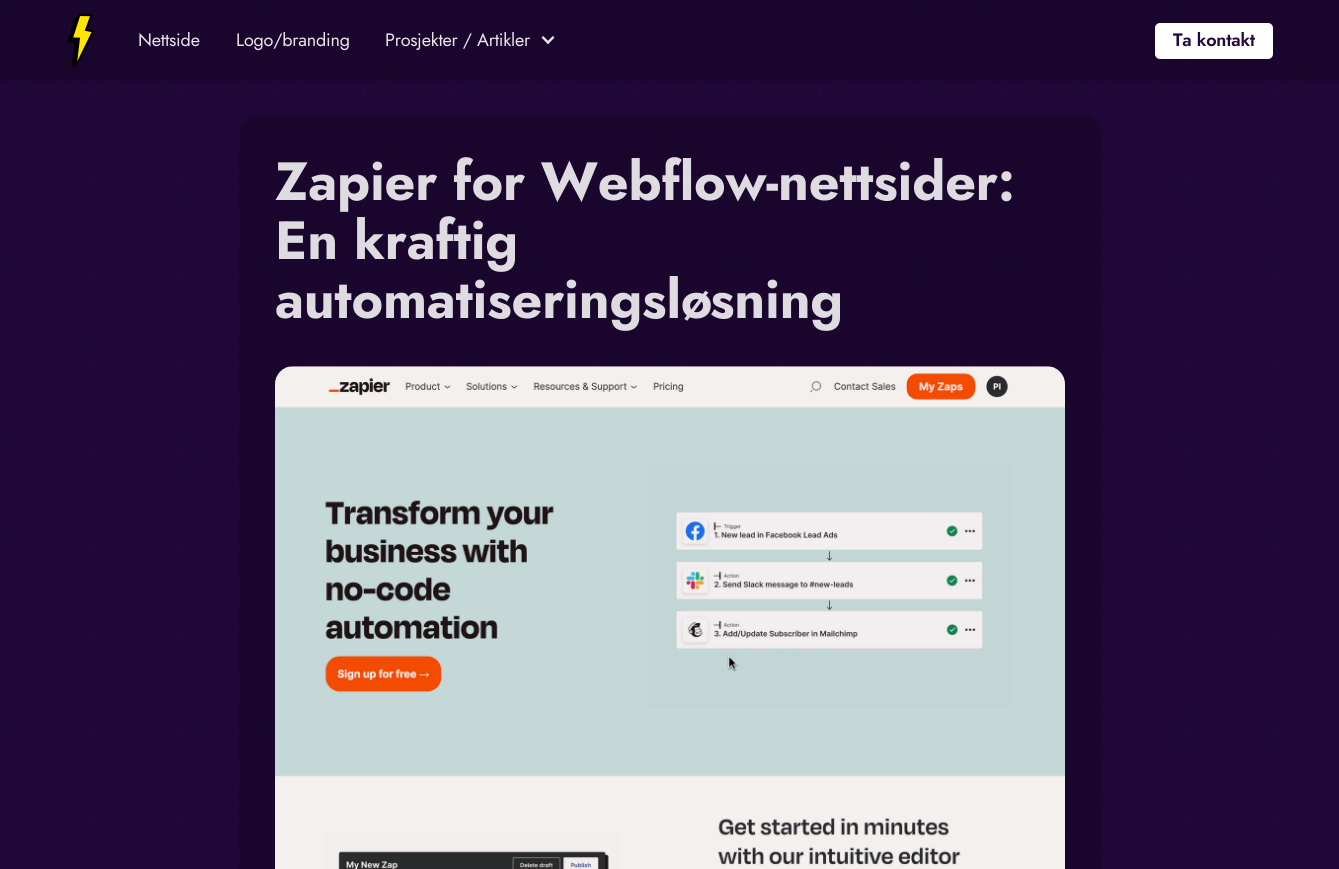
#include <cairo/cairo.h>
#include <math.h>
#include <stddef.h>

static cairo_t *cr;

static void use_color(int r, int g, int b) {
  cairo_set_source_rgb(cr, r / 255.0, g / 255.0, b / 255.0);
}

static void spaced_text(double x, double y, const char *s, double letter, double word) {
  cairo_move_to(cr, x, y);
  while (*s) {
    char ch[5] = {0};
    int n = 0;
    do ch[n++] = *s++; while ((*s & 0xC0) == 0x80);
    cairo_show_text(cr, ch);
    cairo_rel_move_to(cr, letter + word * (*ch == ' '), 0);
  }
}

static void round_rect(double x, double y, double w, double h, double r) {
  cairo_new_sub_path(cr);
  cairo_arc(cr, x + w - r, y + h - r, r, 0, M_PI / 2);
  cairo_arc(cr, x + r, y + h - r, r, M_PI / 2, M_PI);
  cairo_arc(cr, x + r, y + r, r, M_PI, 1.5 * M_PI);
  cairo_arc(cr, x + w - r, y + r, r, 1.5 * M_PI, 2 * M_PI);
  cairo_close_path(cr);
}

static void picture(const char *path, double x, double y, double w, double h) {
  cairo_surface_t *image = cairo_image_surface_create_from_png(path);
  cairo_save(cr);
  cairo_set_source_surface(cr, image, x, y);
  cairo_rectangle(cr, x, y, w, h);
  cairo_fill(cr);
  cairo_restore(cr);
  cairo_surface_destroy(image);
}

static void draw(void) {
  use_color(34, 9, 60);
  cairo_paint(cr);
  picture("img_01.png", 0, 0, 1339, 869);
  cairo_set_source_rgba(cr, 0, 0, 0, 0.2);
  cairo_rectangle(cr, 0, 0, 1339, 81);
  cairo_fill(cr);
  picture("img_02.png", 68, 14, 26, 53);
  picture("img_03.png", 541, 36, 14, 9);
  use_color(255, 255, 255);
  round_rect(1155, 23, 118, 36, 5);
  cairo_fill(cr);
  cairo_set_source_rgba(cr, 0, 0, 0, 0.19);
  round_rect(239, 116, 862, 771, 18);
  cairo_fill(cr);
  picture("img_04.png", 275, 366, 790, 503);
  cairo_select_font_face(cr, "Jost", CAIRO_FONT_SLANT_NORMAL, CAIRO_FONT_WEIGHT_NORMAL);
  cairo_set_font_size(cr, 18);
  use_color(232, 230, 234);
  spaced_text(138, 46, "Nettside", -0.2, 0);
  spaced_text(236, 46, "Logo/branding", -0.2, 0);
  spaced_text(385, 46, "Prosjekter / Artikler", -0.2, 0);
  cairo_select_font_face(cr, "Jost SemiBold", CAIRO_FONT_SLANT_NORMAL, CAIRO_FONT_WEIGHT_NORMAL);
  use_color(35, 8, 62);
  spaced_text(1173, 46, "Ta kontakt", -0.2, 0);
  cairo_select_font_face(cr, "Jost", CAIRO_FONT_SLANT_NORMAL, CAIRO_FONT_WEIGHT_BOLD);
  cairo_set_font_size(cr, 53.8);
  use_color(222, 219, 225);
  spaced_text(275, 200, "Zapier for Webflow-nettsider:", -0.2, 0);
  spaced_text(275, 259, "En kraftig", -0.2, 0);
  spaced_text(275, 318, "automatiseringsløsning", -0.2, 0);
}

int main(void) {
  cairo_surface_t *surface = cairo_image_surface_create(CAIRO_FORMAT_RGB24, 1339, 869);
  cr = cairo_create(surface);
  cairo_font_options_t *options = cairo_font_options_create();
  cairo_font_options_set_hint_metrics(options, CAIRO_HINT_METRICS_OFF);
  cairo_font_options_set_hint_style(options, CAIRO_HINT_STYLE_NONE);
  cairo_set_font_options(cr, options);
  cairo_set_miter_limit(cr, 4);
  draw();
  cairo_surface_write_to_png(surface, "out.png");
  cairo_font_options_destroy(options);
  cairo_destroy(cr);
  cairo_surface_destroy(surface);
  return 0;
}
